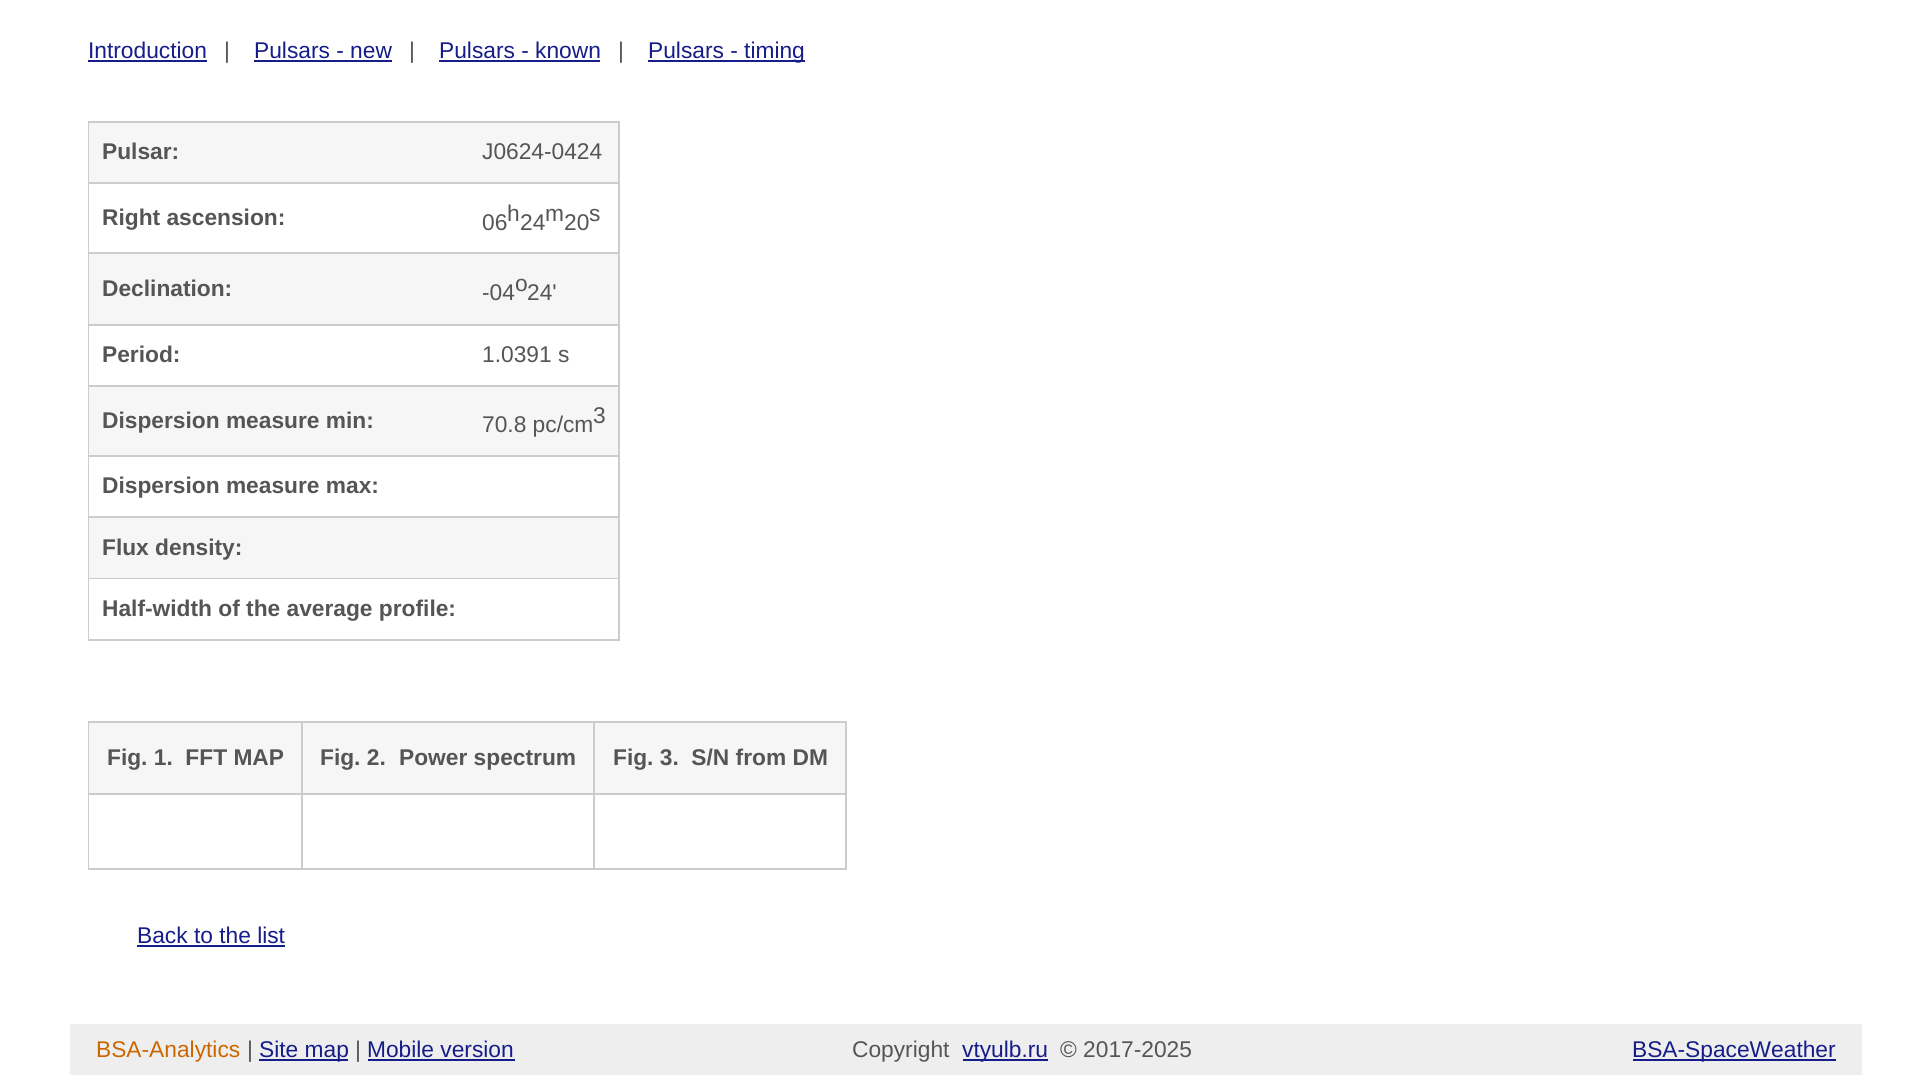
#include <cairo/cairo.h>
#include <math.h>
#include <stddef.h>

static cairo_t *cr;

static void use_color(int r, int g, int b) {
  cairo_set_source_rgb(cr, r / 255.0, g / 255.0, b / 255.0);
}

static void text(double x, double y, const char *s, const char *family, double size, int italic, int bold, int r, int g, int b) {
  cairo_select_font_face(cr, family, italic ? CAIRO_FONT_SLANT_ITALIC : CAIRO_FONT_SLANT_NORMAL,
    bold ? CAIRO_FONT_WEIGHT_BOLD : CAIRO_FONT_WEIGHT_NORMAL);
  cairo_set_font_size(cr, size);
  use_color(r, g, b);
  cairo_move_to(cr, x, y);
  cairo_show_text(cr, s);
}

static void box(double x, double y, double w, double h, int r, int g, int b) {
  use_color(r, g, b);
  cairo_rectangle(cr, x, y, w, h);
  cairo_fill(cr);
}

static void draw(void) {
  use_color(255, 255, 255);
  cairo_paint(cr);
  box(88, 60, 119, 2, 21, 29, 137);
  box(254, 60, 138, 2, 21, 29, 137);
  box(439, 60, 161, 2, 21, 29, 137);
  box(648, 60, 157, 2, 21, 29, 137);
  box(88, 121, 532, 520, 204, 204, 204);
  box(89, 123, 529, 59, 246, 246, 246);
  box(89, 184, 529, 68, 255, 255, 255);
  box(89, 254, 529, 70, 246, 246, 246);
  box(89, 326, 529, 59, 255, 255, 255);
  box(89, 387, 529, 68, 246, 246, 246);
  box(89, 457, 529, 59, 255, 255, 255);
  box(89, 518, 529, 60, 246, 246, 246);
  box(89, 579, 529, 60, 255, 255, 255);
  box(88, 721, 759, 149, 204, 204, 204);
  box(89, 723, 212, 70, 246, 246, 246);
  box(303, 723, 290, 70, 246, 246, 246);
  box(595, 723, 250, 70, 246, 246, 246);
  box(89, 795, 212, 73, 255, 255, 255);
  box(303, 795, 290, 73, 255, 255, 255);
  box(595, 795, 250, 73, 255, 255, 255);
  box(137, 945, 148, 2, 21, 29, 137);
  box(70, 1024, 1792, 51, 238, 238, 238);
  box(259, 1059, 89, 2, 21, 29, 137);
  box(368, 1059, 147, 2, 21, 29, 137);
  box(963, 1059, 85, 2, 21, 29, 137);
  box(1633, 1059, 203, 2, 21, 29, 137);
  text(88, 58, "Introduction", "Liberation Sans", 22.75, 0, 0, 21, 29, 137);
  text(224, 58, "|", "Liberation Sans", 22.75, 0, 0, 85, 85, 85);
  text(254, 58, "Pulsars - new", "Liberation Sans", 22.75, 0, 0, 21, 29, 137);
  text(409, 58, "|", "Liberation Sans", 22.75, 0, 0, 85, 85, 85);
  text(439, 58, "Pulsars - known", "Liberation Sans", 22.75, 0, 0, 21, 29, 137);
  text(618, 58, "|", "Liberation Sans", 22.75, 0, 0, 85, 85, 85);
  text(648, 58, "Pulsars - timing", "Liberation Sans", 22.75, 0, 0, 21, 29, 137);
  text(102, 159, "Pulsar:", "Liberation Sans", 22.75, 0, 1, 85, 85, 85);
  text(482, 159, "J0624-0424", "Liberation Sans", 22.75, 0, 0, 85, 85, 85);
  text(102, 225, "Right ascension:", "Liberation Sans", 22.75, 0, 1, 85, 85, 85);
  text(482, 230, "06", "Liberation Sans", 22.75, 0, 0, 85, 85, 85);
  text(507, 221, "h", "Liberation Sans", 22.75, 0, 0, 85, 85, 85);
  text(520, 230, "24", "Liberation Sans", 22.75, 0, 0, 85, 85, 85);
  text(545, 221, "m", "Liberation Sans", 22.75, 0, 0, 85, 85, 85);
  text(564, 230, "20", "Liberation Sans", 22.75, 0, 0, 85, 85, 85);
  text(589, 221, "s", "Liberation Sans", 22.75, 0, 0, 85, 85, 85);
  text(102, 296, "Declination:", "Liberation Sans", 22.75, 0, 1, 85, 85, 85);
  text(482, 300, "-04", "Liberation Sans", 22.75, 0, 0, 85, 85, 85);
  text(515, 291, "o", "Liberation Sans", 22.75, 0, 0, 85, 85, 85);
  text(527, 300, "24'", "Liberation Sans", 22.75, 0, 0, 85, 85, 85);
  text(102, 362, "Period:", "Liberation Sans", 22.75, 0, 1, 85, 85, 85);
  text(482, 362, "1.0391 s", "Liberation Sans", 22.75, 0, 0, 85, 85, 85);
  text(102, 428, "Dispersion measure min:", "Liberation Sans", 22.75, 0, 1, 85, 85, 85);
  text(482, 432, "70.8 pc/cm", "Liberation Sans", 22.75, 0, 0, 85, 85, 85);
  text(593, 423, "3", "Liberation Sans", 22.75, 0, 0, 85, 85, 85);
  text(102, 493, "Dispersion measure max:", "Liberation Sans", 22.75, 0, 1, 85, 85, 85);
  text(102, 555, "Flux density:", "Liberation Sans", 22.75, 0, 1, 85, 85, 85);
  text(102, 616, "Half-width of the average profile:", "Liberation Sans", 22.75, 0, 1, 85, 85, 85);
  text(107, 765, "Fig. 1.  FFT MAP", "Liberation Sans", 22.75, 0, 1, 85, 85, 85);
  text(320, 765, "Fig. 2.", "Liberation Sans", 22.75, 0, 1, 85, 85, 85);
  text(399, 765, "Power spectrum", "Liberation Sans", 22.75, 0, 1, 85, 85, 85);
  text(613, 765, "Fig. 3.  S/N from DM", "Liberation Sans", 22.75, 0, 1, 85, 85, 85);
  text(137, 943, "Back to the list", "Liberation Sans", 22.75, 0, 0, 21, 29, 137);
  text(96, 1057, "BSA-Analytics", "Liberation Sans", 22.75, 0, 0, 204, 102, 0);
  text(247, 1057, "|", "Liberation Sans", 22.75, 0, 0, 85, 85, 85);
  text(259, 1057, "Site map", "Liberation Sans", 22.75, 0, 0, 21, 29, 137);
  text(355, 1057, "|", "Liberation Sans", 22.75, 0, 0, 85, 85, 85);
  text(367, 1057, "Mobile version", "Liberation Sans", 22.75, 0, 0, 21, 29, 137);
  text(852, 1057, "Copyright", "Liberation Sans", 22.75, 0, 0, 85, 85, 85);
  text(962, 1057, "vtyulb.ru", "Liberation Sans", 22.75, 0, 0, 21, 29, 137);
  text(1060, 1057, "© 2017-2025", "Liberation Sans", 22.75, 0, 0, 85, 85, 85);
  text(1632, 1057, "BSA-SpaceWeather", "Liberation Sans", 22.75, 0, 0, 21, 29, 137);
}

int main(void) {
  cairo_surface_t *surface = cairo_image_surface_create(CAIRO_FORMAT_RGB24, 1931, 1075);
  cr = cairo_create(surface);
  cairo_font_options_t *options = cairo_font_options_create();
  cairo_font_options_set_hint_metrics(options, CAIRO_HINT_METRICS_OFF);
  cairo_font_options_set_hint_style(options, CAIRO_HINT_STYLE_NONE);
  cairo_set_font_options(cr, options);
  cairo_set_miter_limit(cr, 4);
  draw();
  cairo_surface_write_to_png(surface, "out.png");
  cairo_font_options_destroy(options);
  cairo_destroy(cr);
  cairo_surface_destroy(surface);
  return 0;
}
